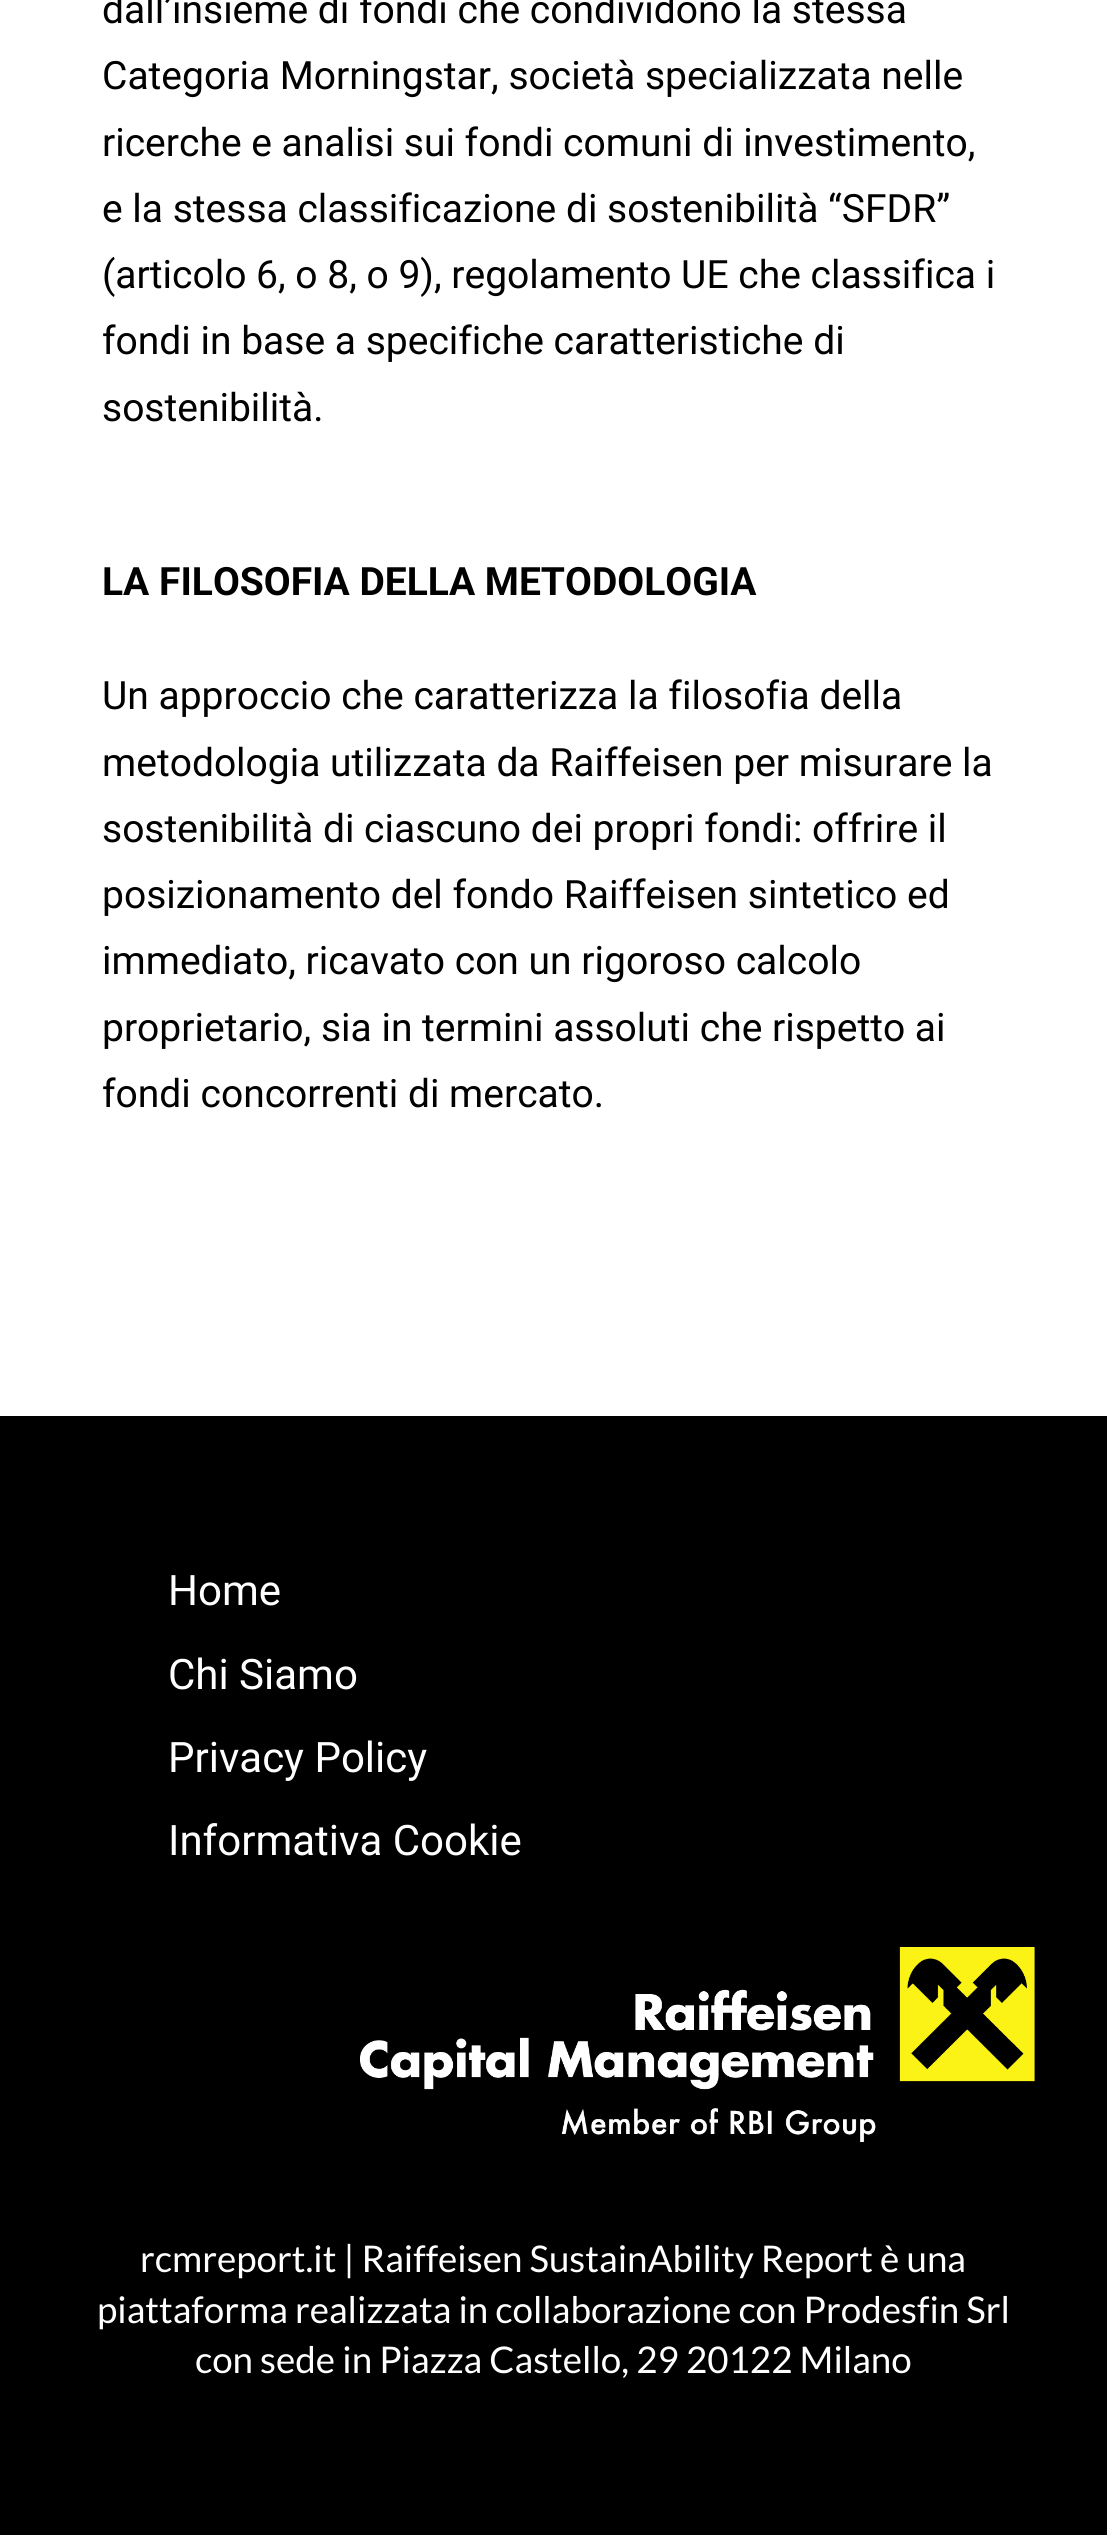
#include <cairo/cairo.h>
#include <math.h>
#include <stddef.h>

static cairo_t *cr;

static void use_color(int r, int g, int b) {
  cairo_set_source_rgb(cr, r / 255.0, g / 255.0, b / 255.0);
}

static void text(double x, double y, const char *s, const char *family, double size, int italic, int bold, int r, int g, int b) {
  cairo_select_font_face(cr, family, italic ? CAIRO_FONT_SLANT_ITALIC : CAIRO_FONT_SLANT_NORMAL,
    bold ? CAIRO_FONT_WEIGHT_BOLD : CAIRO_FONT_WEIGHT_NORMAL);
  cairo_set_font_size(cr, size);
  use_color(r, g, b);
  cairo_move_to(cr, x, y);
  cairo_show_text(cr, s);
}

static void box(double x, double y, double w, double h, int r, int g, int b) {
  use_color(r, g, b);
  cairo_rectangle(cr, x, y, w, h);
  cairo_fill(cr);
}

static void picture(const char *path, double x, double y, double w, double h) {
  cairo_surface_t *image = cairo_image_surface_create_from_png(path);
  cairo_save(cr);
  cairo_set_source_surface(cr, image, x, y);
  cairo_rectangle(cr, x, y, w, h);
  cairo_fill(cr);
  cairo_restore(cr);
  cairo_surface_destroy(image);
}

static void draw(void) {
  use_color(0, 0, 0);
  cairo_paint(cr);
  box(0, 0, 1107, 1416, 255, 255, 255);
  picture("img_01.png", 360, 1947, 675, 195);
  text(102, 23, "dall’insieme di fondi che condividono la stessa", "Roboto", 39, 0, 0, 0, 0, 0);
  text(102, 89, "Categoria Morningstar, società specializzata nelle", "Roboto", 39, 0, 0, 0, 0, 0);
  text(102, 156, "ricerche e analisi sui fondi comuni di investimento,", "Roboto", 39, 0, 0, 0, 0, 0);
  text(102, 222, "e la stessa classificazione di sostenibilità “SFDR”", "Roboto", 39, 0, 0, 0, 0, 0);
  text(102, 288, "(articolo 6, o 8, o 9), regolamento UE che classifica i", "Roboto", 39, 0, 0, 0, 0, 0);
  text(102, 354, "fondi in base a specifiche caratteristiche di", "Roboto", 39, 0, 0, 0, 0, 0);
  text(102, 421, "sostenibilità.", "Roboto", 39, 0, 0, 0, 0, 0);
  text(102, 595, "LA FILOSOFIA DELLA METODOLOGIA", "Roboto", 39, 0, 1, 0, 0, 0);
  text(102, 709, "Un approccio che caratterizza la filosofia della", "Roboto", 39, 0, 0, 0, 0, 0);
  text(102, 776, "metodologia utilizzata da Raiffeisen per misurare la", "Roboto", 39, 0, 0, 0, 0, 0);
  text(102, 842, "sostenibilità di ciascuno dei propri fondi: offrire il", "Roboto", 39, 0, 0, 0, 0, 0);
  text(102, 908, "posizionamento del fondo Raiffeisen sintetico ed", "Roboto", 39, 0, 0, 0, 0, 0);
  text(102, 974, "immediato, ricavato con un rigoroso calcolo", "Roboto", 39, 0, 0, 0, 0, 0);
  text(102, 1041, "proprietario, sia in termini assoluti che rispetto ai", "Roboto", 39, 0, 0, 0, 0, 0);
  text(102, 1107, "fondi concorrenti di mercato.", "Roboto", 39, 0, 0, 0, 0, 0);
  text(168, 1605, "Home", "Roboto", 42, 0, 0, 255, 255, 255);
  text(168, 1689, "Chi Siamo", "Roboto", 42, 0, 0, 255, 255, 255);
  text(168, 1772, "Privacy Policy", "Roboto", 42, 0, 0, 255, 255, 255);
  text(168, 1855, "Informativa Cookie", "Roboto", 42, 0, 0, 255, 255, 255);
  text(140, 2272, "rcmreport.it | Raiffeisen SustainAbility Report è una", "Lato", 36.75, 0, 0, 255, 255, 255);
  text(97, 2323, "piattaforma realizzata in collaborazione con Prodesfin Srl", "Lato", 36.75, 0, 0, 255, 255, 255);
  text(195, 2373, "con sede in Piazza Castello, 29 20122 Milano", "Lato", 36.75, 0, 0, 255, 255, 255);
}

int main(void) {
  cairo_surface_t *surface = cairo_image_surface_create(CAIRO_FORMAT_RGB24, 1107, 2535);
  cr = cairo_create(surface);
  cairo_font_options_t *options = cairo_font_options_create();
  cairo_font_options_set_hint_metrics(options, CAIRO_HINT_METRICS_OFF);
  cairo_font_options_set_hint_style(options, CAIRO_HINT_STYLE_NONE);
  cairo_set_font_options(cr, options);
  cairo_set_miter_limit(cr, 4);
  draw();
  cairo_surface_write_to_png(surface, "out.png");
  cairo_font_options_destroy(options);
  cairo_destroy(cr);
  cairo_surface_destroy(surface);
  return 0;
}
